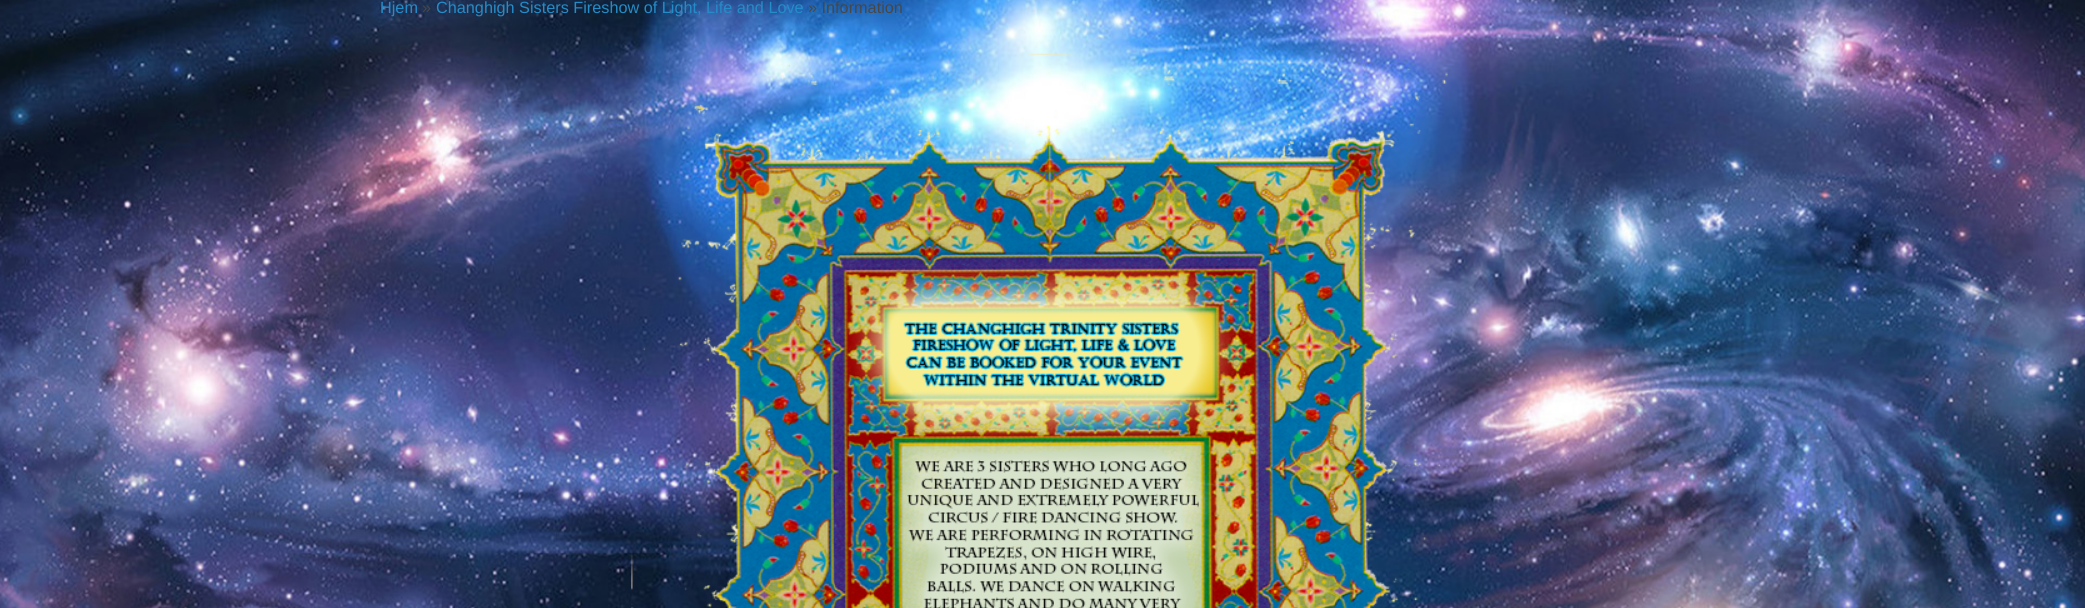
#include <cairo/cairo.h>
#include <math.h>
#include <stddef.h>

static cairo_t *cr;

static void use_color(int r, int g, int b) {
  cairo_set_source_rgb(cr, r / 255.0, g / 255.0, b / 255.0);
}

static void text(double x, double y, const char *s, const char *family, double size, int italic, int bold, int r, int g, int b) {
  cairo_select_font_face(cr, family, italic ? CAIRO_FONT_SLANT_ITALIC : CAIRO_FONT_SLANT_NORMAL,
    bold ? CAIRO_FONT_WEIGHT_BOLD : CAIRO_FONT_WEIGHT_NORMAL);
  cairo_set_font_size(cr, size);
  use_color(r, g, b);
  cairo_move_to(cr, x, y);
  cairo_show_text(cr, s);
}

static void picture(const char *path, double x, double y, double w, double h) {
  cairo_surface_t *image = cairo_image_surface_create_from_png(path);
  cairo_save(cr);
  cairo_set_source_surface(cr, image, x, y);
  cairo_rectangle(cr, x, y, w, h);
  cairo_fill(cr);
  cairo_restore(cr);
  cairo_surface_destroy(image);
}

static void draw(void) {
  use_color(255, 255, 255);
  cairo_paint(cr);
  picture("img_01.png", 0, 0, 2085, 608);
  picture("img_02.png", 631, 53, 817, 555);
  text(380, 13, "Hjem", "Liberation Sans", 16.25, 0, 0, 36, 140, 200);
  text(422, 13, "»", "Liberation Sans", 16.25, 0, 0, 71, 71, 71);
  text(436, 13, "Changhigh Sisters Fireshow of Light, Life and Love", "Liberation Sans", 16.25, 0, 0, 36, 140, 200);
  text(808, 13, "» Information", "Liberation Sans", 16.25, 0, 0, 71, 71, 71);
}

int main(void) {
  cairo_surface_t *surface = cairo_image_surface_create(CAIRO_FORMAT_RGB24, 2085, 608);
  cr = cairo_create(surface);
  cairo_font_options_t *options = cairo_font_options_create();
  cairo_font_options_set_hint_metrics(options, CAIRO_HINT_METRICS_OFF);
  cairo_font_options_set_hint_style(options, CAIRO_HINT_STYLE_NONE);
  cairo_set_font_options(cr, options);
  cairo_set_miter_limit(cr, 4);
  draw();
  cairo_surface_write_to_png(surface, "out.png");
  cairo_font_options_destroy(options);
  cairo_destroy(cr);
  cairo_surface_destroy(surface);
  return 0;
}
